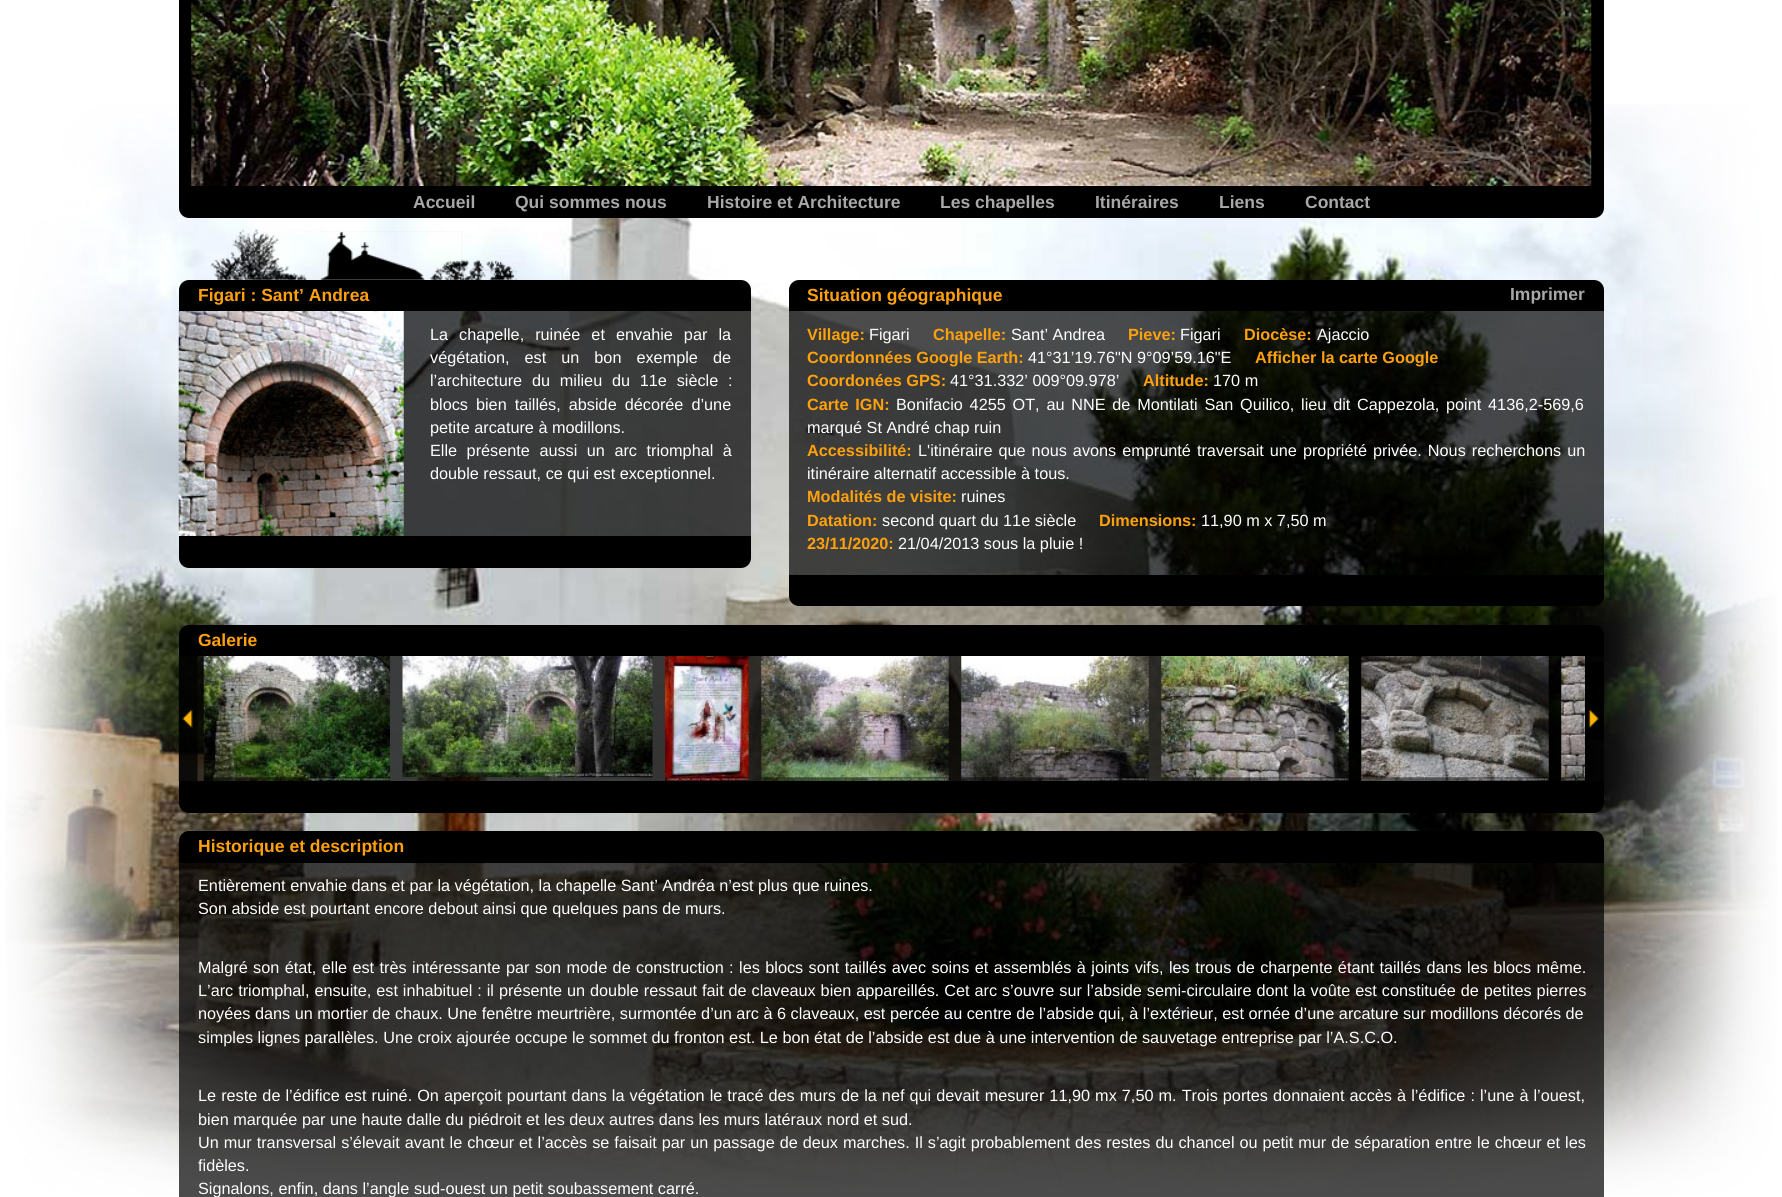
#include <cairo/cairo.h>
#include <math.h>
#include <stddef.h>

static cairo_t *cr;

static void use_color(int r, int g, int b) {
  cairo_set_source_rgb(cr, r / 255.0, g / 255.0, b / 255.0);
}

static void text(double x, double y, const char *s, const char *family, double size, int italic, int bold, int r, int g, int b) {
  cairo_select_font_face(cr, family, italic ? CAIRO_FONT_SLANT_ITALIC : CAIRO_FONT_SLANT_NORMAL,
    bold ? CAIRO_FONT_WEIGHT_BOLD : CAIRO_FONT_WEIGHT_NORMAL);
  cairo_set_font_size(cr, size);
  use_color(r, g, b);
  cairo_move_to(cr, x, y);
  cairo_show_text(cr, s);
}

static void spaced_text(double x, double y, const char *s, double letter, double word) {
  cairo_move_to(cr, x, y);
  while (*s) {
    char ch[5] = {0};
    int n = 0;
    do ch[n++] = *s++; while ((*s & 0xC0) == 0x80);
    cairo_show_text(cr, ch);
    cairo_rel_move_to(cr, letter + word * (*ch == ' '), 0);
  }
}

static void picture(const char *path, double x, double y, double w, double h) {
  cairo_surface_t *image = cairo_image_surface_create_from_png(path);
  cairo_save(cr);
  cairo_set_source_surface(cr, image, x, y);
  cairo_rectangle(cr, x, y, w, h);
  cairo_fill(cr);
  cairo_restore(cr);
  cairo_surface_destroy(image);
}

static void draw(void) {
  use_color(255, 255, 255);
  cairo_paint(cr);
  picture("img_01.png", 6, 104, 1771, 1092);
  use_color(0, 0, 0);
  cairo_new_path(cr);
  cairo_move_to(cr, 179, -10);
  cairo_line_to(cr, 1604, -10);
  cairo_line_to(cr, 1604, 208);
  cairo_curve_to(cr, 1604, 213.5, 1599.5, 218, 1594, 218);
  cairo_line_to(cr, 189, 218);
  cairo_curve_to(cr, 183.5, 218, 179, 213.5, 179, 208);
  cairo_close_path(cr);
  cairo_fill(cr);
  picture("img_02.png", 191, 0, 1401, 186);
  picture("img_03.png", 210, 229, 101, 51);
  picture("img_04.png", 319, 231, 199, 49);
  cairo_new_path(cr);
  cairo_move_to(cr, 189, 280);
  cairo_line_to(cr, 741, 280);
  cairo_curve_to(cr, 746.5, 280, 751, 284.5, 751, 290);
  cairo_line_to(cr, 751, 311);
  cairo_line_to(cr, 179, 311);
  cairo_line_to(cr, 179, 290);
  cairo_curve_to(cr, 179, 284.5, 183.5, 280, 189, 280);
  cairo_close_path(cr);
  cairo_fill(cr);
  cairo_set_source_rgba(cr, 0, 0, 0, 0.7);
  cairo_rectangle(cr, 403, 311, 348, 225);
  cairo_fill(cr);
  picture("img_05.png", 178, 311, 226, 225);
  use_color(0, 0, 0);
  cairo_new_path(cr);
  cairo_move_to(cr, 179, 536);
  cairo_line_to(cr, 751, 536);
  cairo_line_to(cr, 751, 558);
  cairo_curve_to(cr, 751, 563.5, 746.5, 568, 741, 568);
  cairo_line_to(cr, 189, 568);
  cairo_curve_to(cr, 183.5, 568, 179, 563.5, 179, 558);
  cairo_close_path(cr);
  cairo_fill(cr);
  cairo_new_path(cr);
  cairo_move_to(cr, 799, 280);
  cairo_line_to(cr, 1594, 280);
  cairo_curve_to(cr, 1599.5, 280, 1604, 284.5, 1604, 290);
  cairo_line_to(cr, 1604, 311);
  cairo_line_to(cr, 789, 311);
  cairo_line_to(cr, 789, 290);
  cairo_curve_to(cr, 789, 284.5, 793.5, 280, 799, 280);
  cairo_close_path(cr);
  cairo_fill(cr);
  cairo_set_source_rgba(cr, 0, 0, 0, 0.7);
  cairo_rectangle(cr, 789, 311, 815, 264);
  cairo_fill(cr);
  use_color(0, 0, 0);
  cairo_new_path(cr);
  cairo_move_to(cr, 789, 575);
  cairo_line_to(cr, 1604, 575);
  cairo_line_to(cr, 1604, 596);
  cairo_curve_to(cr, 1604, 601.5, 1599.5, 606, 1594, 606);
  cairo_line_to(cr, 799, 606);
  cairo_curve_to(cr, 793.5, 606, 789, 601.5, 789, 596);
  cairo_close_path(cr);
  cairo_fill(cr);
  cairo_new_path(cr);
  cairo_move_to(cr, 189, 625);
  cairo_line_to(cr, 1594, 625);
  cairo_curve_to(cr, 1599.5, 625, 1604, 629.5, 1604, 635);
  cairo_line_to(cr, 1604, 656);
  cairo_line_to(cr, 179, 656);
  cairo_line_to(cr, 179, 635);
  cairo_curve_to(cr, 179, 629.5, 183.5, 625, 189, 625);
  cairo_close_path(cr);
  cairo_fill(cr);
  cairo_set_source_rgba(cr, 0, 0, 0, 0.7);
  cairo_rectangle(cr, 179, 656, 1425, 125);
  cairo_fill(cr);
  picture("img_06.png", 178, 656, 20, 125);
  picture("img_07.png", 203, 656, 187, 125);
  picture("img_08.png", 402, 656, 251, 122);
  picture("img_09.png", 665, 656, 84, 125);
  picture("img_10.png", 761, 656, 188, 125);
  picture("img_11.png", 961, 656, 188, 125);
  picture("img_12.png", 1161, 656, 188, 125);
  picture("img_13.png", 1361, 656, 188, 125);
  picture("img_14.png", 1561, 656, 24, 125);
  picture("img_15.png", 1585, 662, 19, 78);
  use_color(0, 0, 0);
  cairo_new_path(cr);
  cairo_move_to(cr, 179, 781);
  cairo_line_to(cr, 1604, 781);
  cairo_line_to(cr, 1604, 803);
  cairo_curve_to(cr, 1604, 808.5, 1599.5, 813, 1594, 813);
  cairo_line_to(cr, 189, 813);
  cairo_curve_to(cr, 183.5, 813, 179, 808.5, 179, 803);
  cairo_close_path(cr);
  cairo_fill(cr);
  cairo_new_path(cr);
  cairo_move_to(cr, 189, 831);
  cairo_line_to(cr, 1594, 831);
  cairo_curve_to(cr, 1599.5, 831, 1604, 835.5, 1604, 841);
  cairo_line_to(cr, 1604, 863);
  cairo_line_to(cr, 179, 863);
  cairo_line_to(cr, 179, 841);
  cairo_curve_to(cr, 179, 835.5, 183.5, 831, 189, 831);
  cairo_close_path(cr);
  cairo_fill(cr);
  cairo_set_source_rgba(cr, 0, 0, 0, 0.7);
  cairo_rectangle(cr, 179, 863, 1425, 334);
  cairo_fill(cr);
  text(413, 208, "Accueil", "Liberation Sans", 17.5, 0, 1, 168, 168, 168);
  text(515, 208, "Qui sommes nous", "Liberation Sans", 17.5, 0, 1, 168, 168, 168);
  text(707, 208, "Histoire et Architecture", "Liberation Sans", 17.5, 0, 1, 168, 168, 168);
  text(940, 208, "Les chapelles", "Liberation Sans", 17.5, 0, 1, 168, 168, 168);
  text(1095, 208, "Itinéraires", "Liberation Sans", 17.5, 0, 1, 168, 168, 168);
  text(1219, 208, "Liens", "Liberation Sans", 17.5, 0, 1, 168, 168, 168);
  text(1305, 208, "Contact", "Liberation Sans", 17.5, 0, 1, 168, 168, 168);
  text(198, 301, "Figari : Sant’ Andrea", "Liberation Sans", 17.5, 0, 1, 255, 161, 12);
  cairo_select_font_face(cr, "Liberation Sans", CAIRO_FONT_SLANT_NORMAL, CAIRO_FONT_WEIGHT_NORMAL);
  cairo_set_font_size(cr, 16.25);
  use_color(255, 255, 255);
  spaced_text(430, 340, "La chapelle, ruinée et envahie par la", 0, 6.5);
  spaced_text(430, 363, "végétation, est un bon exemple de", 0, 10.5);
  spaced_text(430, 386, "l’architecture du milieu du 11e siècle :", 0, 5.25);
  spaced_text(430, 410, "blocs bien taillés, abside décorée d’une", 0, 3.5);
  text(430, 433, "petite arcature à modillons.", "Liberation Sans", 16.25, 0, 0, 255, 255, 255);
  spaced_text(430, 456, "Elle présente aussi un arc triomphal à", 0, 5);
  text(430, 479, "double ressaut, ce qui est exceptionnel.", "Liberation Sans", 16.25, 0, 0, 255, 255, 255);
  text(807, 301, "Situation géographique", "Liberation Sans", 17.5, 0, 1, 255, 161, 12);
  text(1510, 300, "Imprimer", "Liberation Sans", 17.5, 0, 1, 168, 168, 168);
  text(807, 340, "Village:", "Liberation Sans", 16.25, 0, 1, 255, 161, 12);
  text(869, 340, "Figari", "Liberation Sans", 16.25, 0, 0, 255, 255, 255);
  text(933, 340, "Chapelle:", "Liberation Sans", 16.25, 0, 1, 255, 161, 12);
  text(1011, 340, "Sant’ Andrea", "Liberation Sans", 16.25, 0, 0, 255, 255, 255);
  text(1128, 340, "Pieve:", "Liberation Sans", 16.25, 0, 1, 255, 161, 12);
  text(1180, 340, "Figari", "Liberation Sans", 16.25, 0, 0, 255, 255, 255);
  text(1244, 340, "Diocèse:", "Liberation Sans", 16.25, 0, 1, 255, 161, 12);
  text(1317, 340, "Ajaccio", "Liberation Sans", 16.25, 0, 0, 255, 255, 255);
  text(807, 363, "Coordonnées Google Earth:", "Liberation Sans", 16.25, 0, 1, 255, 161, 12);
  text(1028, 363, "41°31’19.76\"N 9°09’59.16\"E", "Liberation Sans", 16.25, 0, 0, 255, 255, 255);
  text(1255, 363, "Afficher la carte Google", "Liberation Sans", 16.25, 0, 1, 255, 161, 12);
  text(807, 386, "Coordonées GPS:", "Liberation Sans", 16.25, 0, 1, 255, 161, 12);
  text(950, 386, "41°31.332’ 009°09.978’", "Liberation Sans", 16.25, 0, 0, 255, 255, 255);
  text(1143, 386, "Altitude:", "Liberation Sans", 16.25, 0, 1, 255, 161, 12);
  text(1213, 386, "170 m", "Liberation Sans", 16.25, 0, 0, 255, 255, 255);
  cairo_select_font_face(cr, "Liberation Sans", CAIRO_FONT_SLANT_NORMAL, CAIRO_FONT_WEIGHT_BOLD);
  use_color(255, 161, 12);
  spaced_text(807, 410, "Carte IGN:", 0, 2.25);
  cairo_select_font_face(cr, "Liberation Sans", CAIRO_FONT_SLANT_NORMAL, CAIRO_FONT_WEIGHT_NORMAL);
  use_color(255, 255, 255);
  spaced_text(896, 410, "Bonifacio 4255 OT, au NNE de Montilati San Quilico, lieu dit Cappezola, point 4136,2-569,6", 0, 2.25);
  text(807, 433, "marqué St André chap ruin", "Liberation Sans", 16.25, 0, 0, 255, 255, 255);
  text(807, 456, "Accessibilité:", "Liberation Sans", 16.25, 0, 1, 255, 161, 12);
  cairo_select_font_face(cr, "Liberation Sans", CAIRO_FONT_SLANT_NORMAL, CAIRO_FONT_WEIGHT_NORMAL);
  use_color(255, 255, 255);
  spaced_text(918, 456, "L'itinéraire que nous avons emprunté traversait une propriété privée. Nous recherchons un", 0, 1.5);
  text(807, 479, "itinéraire alternatif accessible à tous.", "Liberation Sans", 16.25, 0, 0, 255, 255, 255);
  text(807, 502, "Modalités de visite:", "Liberation Sans", 16.25, 0, 1, 255, 161, 12);
  text(961, 502, "ruines", "Liberation Sans", 16.25, 0, 0, 255, 255, 255);
  text(807, 526, "Datation:", "Liberation Sans", 16.25, 0, 1, 255, 161, 12);
  text(882, 526, "second quart du 11e siècle", "Liberation Sans", 16.25, 0, 0, 255, 255, 255);
  text(1099, 526, "Dimensions:", "Liberation Sans", 16.25, 0, 1, 255, 161, 12);
  text(1201, 526, "11,90 m x 7,50 m", "Liberation Sans", 16.25, 0, 0, 255, 255, 255);
  text(807, 549, "23/11/2020:", "Liberation Sans", 16.25, 0, 1, 255, 161, 12);
  text(898, 549, "21/04/2013 sous la pluie !", "Liberation Sans", 16.25, 0, 0, 255, 255, 255);
  text(198, 646, "Galerie", "Liberation Sans", 17.5, 0, 1, 255, 161, 12);
  text(198, 852, "Historique et description", "Liberation Sans", 17.5, 0, 1, 255, 161, 12);
  text(198, 891, "Entièrement envahie dans et par la végétation, la chapelle Sant’ Andréa n’est plus que ruines.", "Liberation Sans", 16.25, 0, 0, 255, 255, 255);
  text(198, 914, "Son abside est pourtant encore debout ainsi que quelques pans de murs.", "Liberation Sans", 16.25, 0, 0, 255, 255, 255);
  spaced_text(198, 973, "Malgré son état, elle est très intéressante par son mode de construction : les blocs sont taillés avec soins et assemblés à joints vifs, les trous de charpente étant taillés dans les blocs même.", 0, 0.9);
  spaced_text(198, 996, "L’arc triomphal, ensuite, est inhabituel : il présente un double ressaut fait de claveaux bien appareillés. Cet arc s’ouvre sur l’abside semi-circulaire dont la voûte est constituée de petites pierres", 0, 0.4);
  text(198, 1019, "noyées dans un mortier de chaux. Une fenêtre meurtrière, surmontée d’un arc à 6 claveaux, est percée au centre de l’abside qui, à l’extérieur, est ornée d’une arcature sur modillons décorés de", "Liberation Sans", 16.25, 0, 0, 255, 255, 255);
  text(198, 1043, "simples lignes parallèles. Une croix ajourée occupe le sommet du fronton est. Le bon état de l’abside est due à une intervention de sauvetage entreprise par l’A.S.C.O.", "Liberation Sans", 16.25, 0, 0, 255, 255, 255);
  spaced_text(198, 1101, "Le reste de l’édifice est ruiné. On aperçoit pourtant dans la végétation le tracé des murs de la nef qui devait mesurer 11,90 mx 7,50 m. Trois portes donnaient accès à l’édifice : l’une à l’ouest,", 0, 0.55);
  text(198, 1125, "bien marquée par une haute dalle du piédroit et les deux autres dans les murs latéraux nord et sud.", "Liberation Sans", 16.25, 0, 0, 255, 255, 255);
  spaced_text(198, 1148, "Un mur transversal s’élevait avant le chœur et l’accès se faisait par un passage de deux marches. Il s’agit probablement des restes du chancel ou petit mur de séparation entre le chœur et les", 0, 0.45);
  text(198, 1171, "fidèles.", "Liberation Sans", 16.25, 0, 0, 255, 255, 255);
  text(198, 1194, "Signalons, enfin, dans l’angle sud-ouest un petit soubassement carré.", "Liberation Sans", 16.25, 0, 0, 255, 255, 255);
}

int main(void) {
  cairo_surface_t *surface = cairo_image_surface_create(CAIRO_FORMAT_RGB24, 1782, 1197);
  cr = cairo_create(surface);
  cairo_font_options_t *options = cairo_font_options_create();
  cairo_font_options_set_hint_metrics(options, CAIRO_HINT_METRICS_OFF);
  cairo_font_options_set_hint_style(options, CAIRO_HINT_STYLE_NONE);
  cairo_set_font_options(cr, options);
  cairo_set_miter_limit(cr, 4);
  draw();
  cairo_surface_write_to_png(surface, "out.png");
  cairo_font_options_destroy(options);
  cairo_destroy(cr);
  cairo_surface_destroy(surface);
  return 0;
}
